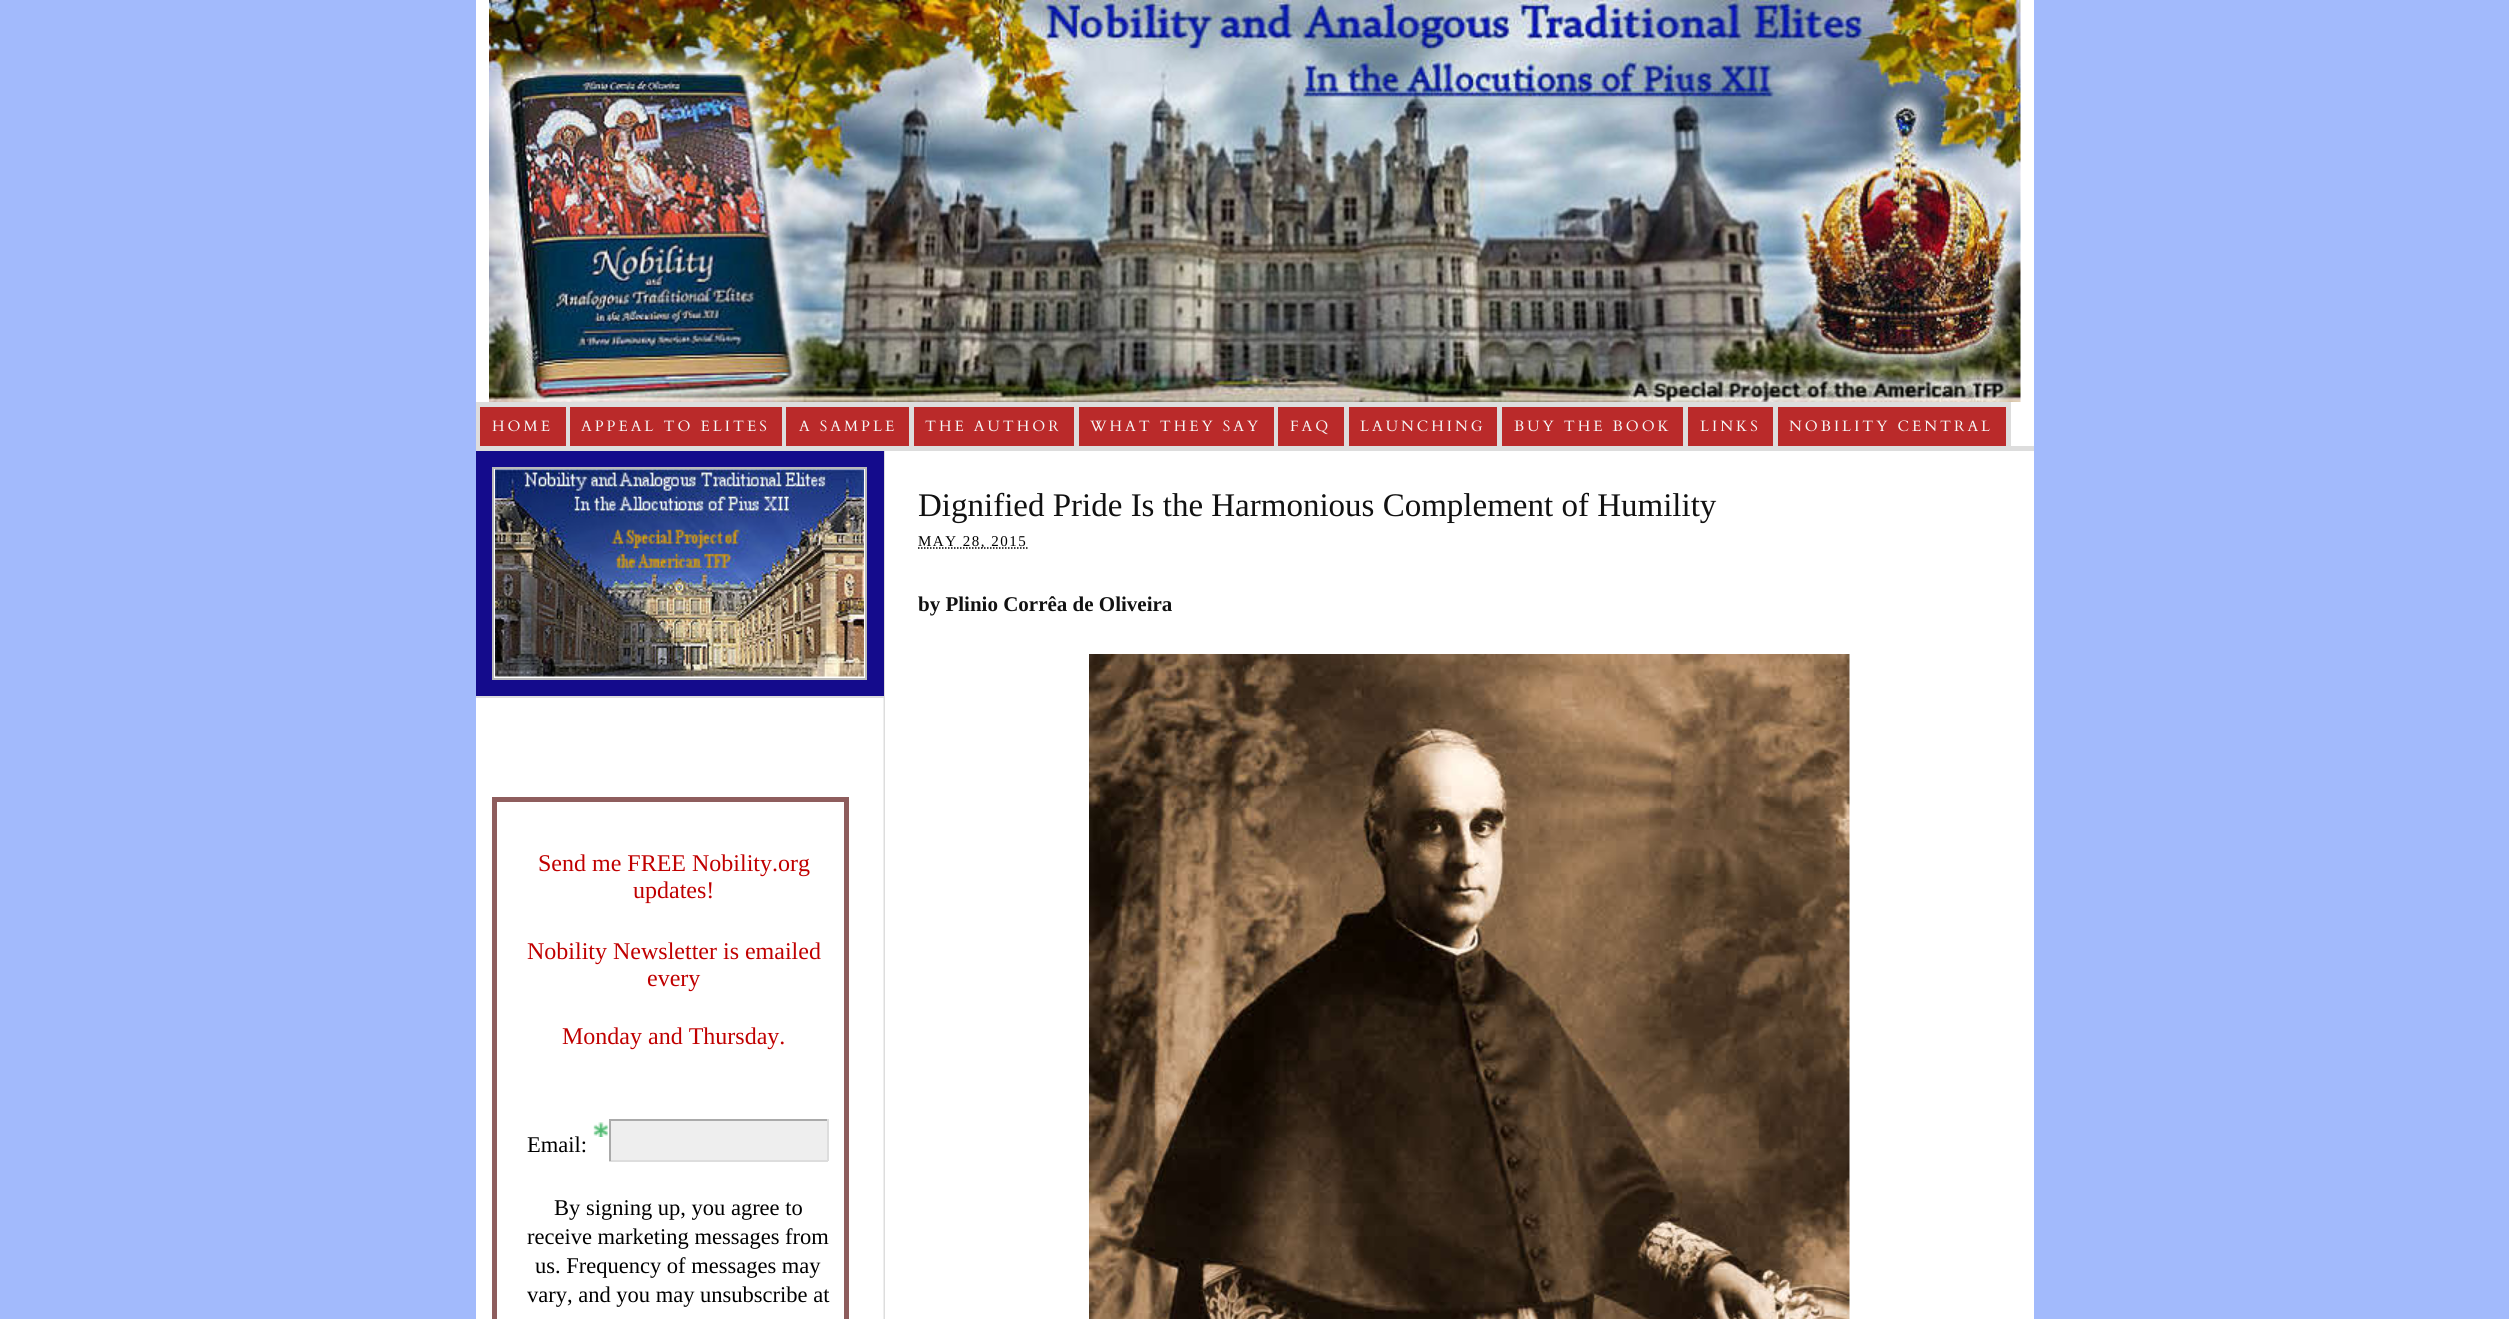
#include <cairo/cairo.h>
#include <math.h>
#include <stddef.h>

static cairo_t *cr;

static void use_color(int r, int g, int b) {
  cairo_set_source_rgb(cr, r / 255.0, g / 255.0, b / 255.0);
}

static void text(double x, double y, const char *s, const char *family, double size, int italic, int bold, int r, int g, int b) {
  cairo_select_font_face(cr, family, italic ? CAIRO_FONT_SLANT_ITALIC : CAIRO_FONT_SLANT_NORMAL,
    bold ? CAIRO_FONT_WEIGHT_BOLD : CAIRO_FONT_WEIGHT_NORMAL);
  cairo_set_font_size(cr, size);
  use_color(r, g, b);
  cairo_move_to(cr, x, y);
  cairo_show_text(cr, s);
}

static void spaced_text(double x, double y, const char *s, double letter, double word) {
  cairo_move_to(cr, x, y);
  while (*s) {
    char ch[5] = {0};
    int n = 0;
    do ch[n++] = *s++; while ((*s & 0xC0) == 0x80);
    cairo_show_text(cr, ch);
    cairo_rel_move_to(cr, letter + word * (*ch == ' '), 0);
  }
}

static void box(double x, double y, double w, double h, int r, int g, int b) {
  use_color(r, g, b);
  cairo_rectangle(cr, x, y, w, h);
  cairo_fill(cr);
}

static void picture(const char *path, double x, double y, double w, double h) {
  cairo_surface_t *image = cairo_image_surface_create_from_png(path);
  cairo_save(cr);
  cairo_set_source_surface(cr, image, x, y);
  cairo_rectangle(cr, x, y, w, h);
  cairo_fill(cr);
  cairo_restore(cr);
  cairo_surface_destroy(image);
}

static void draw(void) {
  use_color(162, 186, 252);
  cairo_paint(cr);
  box(476, 0, 1558, 1319, 255, 255, 255);
  picture("img_01.png", 489, 0, 1532, 402);
  box(476, 446, 1558, 5, 221, 221, 221);
  box(476, 402, 5, 48, 221, 221, 221);
  box(480, 407, 86, 39, 186, 42, 42);
  box(480, 402, 90, 5, 221, 221, 221);
  box(566, 402, 5, 48, 221, 221, 221);
  box(570, 407, 212, 39, 186, 42, 42);
  box(570, 402, 216, 5, 221, 221, 221);
  box(782, 402, 5, 48, 221, 221, 221);
  box(786, 407, 123, 39, 186, 42, 42);
  box(786, 402, 492, 5, 221, 221, 221);
  box(909, 402, 5, 48, 221, 221, 221);
  box(914, 407, 160, 39, 186, 42, 42);
  box(1074, 402, 5, 48, 221, 221, 221);
  box(1079, 407, 195, 39, 186, 42, 42);
  box(1274, 402, 5, 48, 221, 221, 221);
  box(1278, 407, 66, 39, 186, 42, 42);
  box(1278, 402, 732, 5, 221, 221, 221);
  box(1344, 402, 5, 48, 221, 221, 221);
  box(1349, 407, 148, 39, 186, 42, 42);
  box(1497, 402, 5, 48, 221, 221, 221);
  box(1502, 407, 181, 39, 186, 42, 42);
  box(1683, 402, 5, 48, 221, 221, 221);
  box(1688, 407, 85, 39, 186, 42, 42);
  box(1773, 402, 5, 48, 221, 221, 221);
  box(1778, 407, 228, 39, 186, 42, 42);
  box(2006, 402, 5, 48, 221, 221, 221);
  picture("img_02.png", 883, 451, 2, 868);
  cairo_new_path(cr);
  cairo_move_to(cr, 918, 548);
  cairo_line_to(cr, 1027.5, 548);
  use_color(0, 0, 0);
  cairo_set_line_width(cr, 1.5);
  cairo_set_dash(cr, (double[]){1.5, 1.5}, 2, 0);
  cairo_stroke(cr);
  picture("img_03.png", 1089, 654, 761, 665);
  box(476, 451, 408, 245, 20, 11, 140);
  box(476, 696, 408, 2, 221, 221, 221);
  use_color(255, 255, 255);
  cairo_rectangle(cr, 493, 468, 373, 211);
  cairo_fill_preserve(cr);
  use_color(187, 187, 187);
  cairo_set_line_width(cr, 2);
  cairo_set_dash(cr, NULL, 0, 0);
  cairo_stroke(cr);
  picture("img_04.png", 495, 469, 369, 208);
  cairo_rectangle(cr, 494.5, 799.5, 352, 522);
  use_color(142, 93, 93);
  cairo_set_line_width(cr, 5);
  cairo_stroke(cr);
  picture("img_05.png", 593, 1122, 16, 15);
  box(611, 1121, 216, 39, 238, 238, 238);
  box(609, 1119, 219, 2, 170, 170, 170);
  box(827, 1119, 2, 42, 221, 221, 221);
  box(609, 1160, 219, 2, 221, 221, 221);
  box(609, 1119, 2, 42, 170, 170, 170);
  cairo_select_font_face(cr, "Cardo", CAIRO_FONT_SLANT_NORMAL, CAIRO_FONT_WEIGHT_NORMAL);
  cairo_set_font_size(cr, 15);
  use_color(247, 247, 247);
  spaced_text(492, 431, "HOME", 3, 0);
  spaced_text(581, 431, "APPEAL TO ELITES", 3, 0);
  spaced_text(799, 431, "A SAMPLE", 3, 0);
  spaced_text(925, 431, "THE AUTHOR", 3, 0);
  spaced_text(1090, 431, "WHAT THEY SAY", 3, 0);
  spaced_text(1290, 431, "FAQ", 3, 0);
  spaced_text(1360, 431, "LAUNCHING", 3, 0);
  spaced_text(1514, 431, "BUY THE BOOK", 3, 0);
  spaced_text(1700, 431, "LINKS", 3, 0);
  spaced_text(1789, 431, "NOBILITY CENTRAL", 3, 0);
  text(918, 516, "Dignified Pride Is the Harmonious Complement of Humility", "Liberation Serif", 33, 0, 0, 17, 17, 17);
  cairo_set_font_size(cr, 15);
  use_color(0, 0, 0);
  spaced_text(918, 546, "MAY 28, 2015", 1.5, 0);
  text(918, 611, "by Plinio Corrêa de Oliveira", "Liberation Serif", 21, 0, 1, 17, 17, 17);
  text(538, 871, "Send me FREE Nobility.org", "Liberation Serif", 24, 0, 0, 192, 0, 0);
  text(633, 898, "updates!", "Liberation Serif", 24, 0, 0, 192, 0, 0);
  text(527, 959, "Nobility Newsletter is emailed", "Liberation Serif", 24, 0, 0, 192, 0, 0);
  text(647, 986, "every", "Liberation Serif", 24, 0, 0, 192, 0, 0);
  text(562, 1044, "Monday and Thursday.", "Liberation Serif", 24, 0, 0, 192, 0, 0);
  text(527, 1152, "Email:", "Liberation Serif", 22.5, 0, 0, 0, 0, 0);
  text(554, 1215, "By signing up, you agree to", "Liberation Serif", 22.5, 0, 0, 0, 0, 0);
  text(527, 1244, "receive marketing messages from", "Liberation Serif", 22.5, 0, 0, 0, 0, 0);
  text(535, 1273, "us. Frequency of messages may", "Liberation Serif", 22.5, 0, 0, 0, 0, 0);
  text(527, 1302, "vary, and you may unsubscribe at", "Liberation Serif", 22.5, 0, 0, 0, 0, 0);
}

int main(void) {
  cairo_surface_t *surface = cairo_image_surface_create(CAIRO_FORMAT_RGB24, 2509, 1319);
  cr = cairo_create(surface);
  cairo_font_options_t *options = cairo_font_options_create();
  cairo_font_options_set_hint_metrics(options, CAIRO_HINT_METRICS_OFF);
  cairo_font_options_set_hint_style(options, CAIRO_HINT_STYLE_NONE);
  cairo_set_font_options(cr, options);
  cairo_set_miter_limit(cr, 4);
  draw();
  cairo_surface_write_to_png(surface, "out.png");
  cairo_font_options_destroy(options);
  cairo_destroy(cr);
  cairo_surface_destroy(surface);
  return 0;
}
